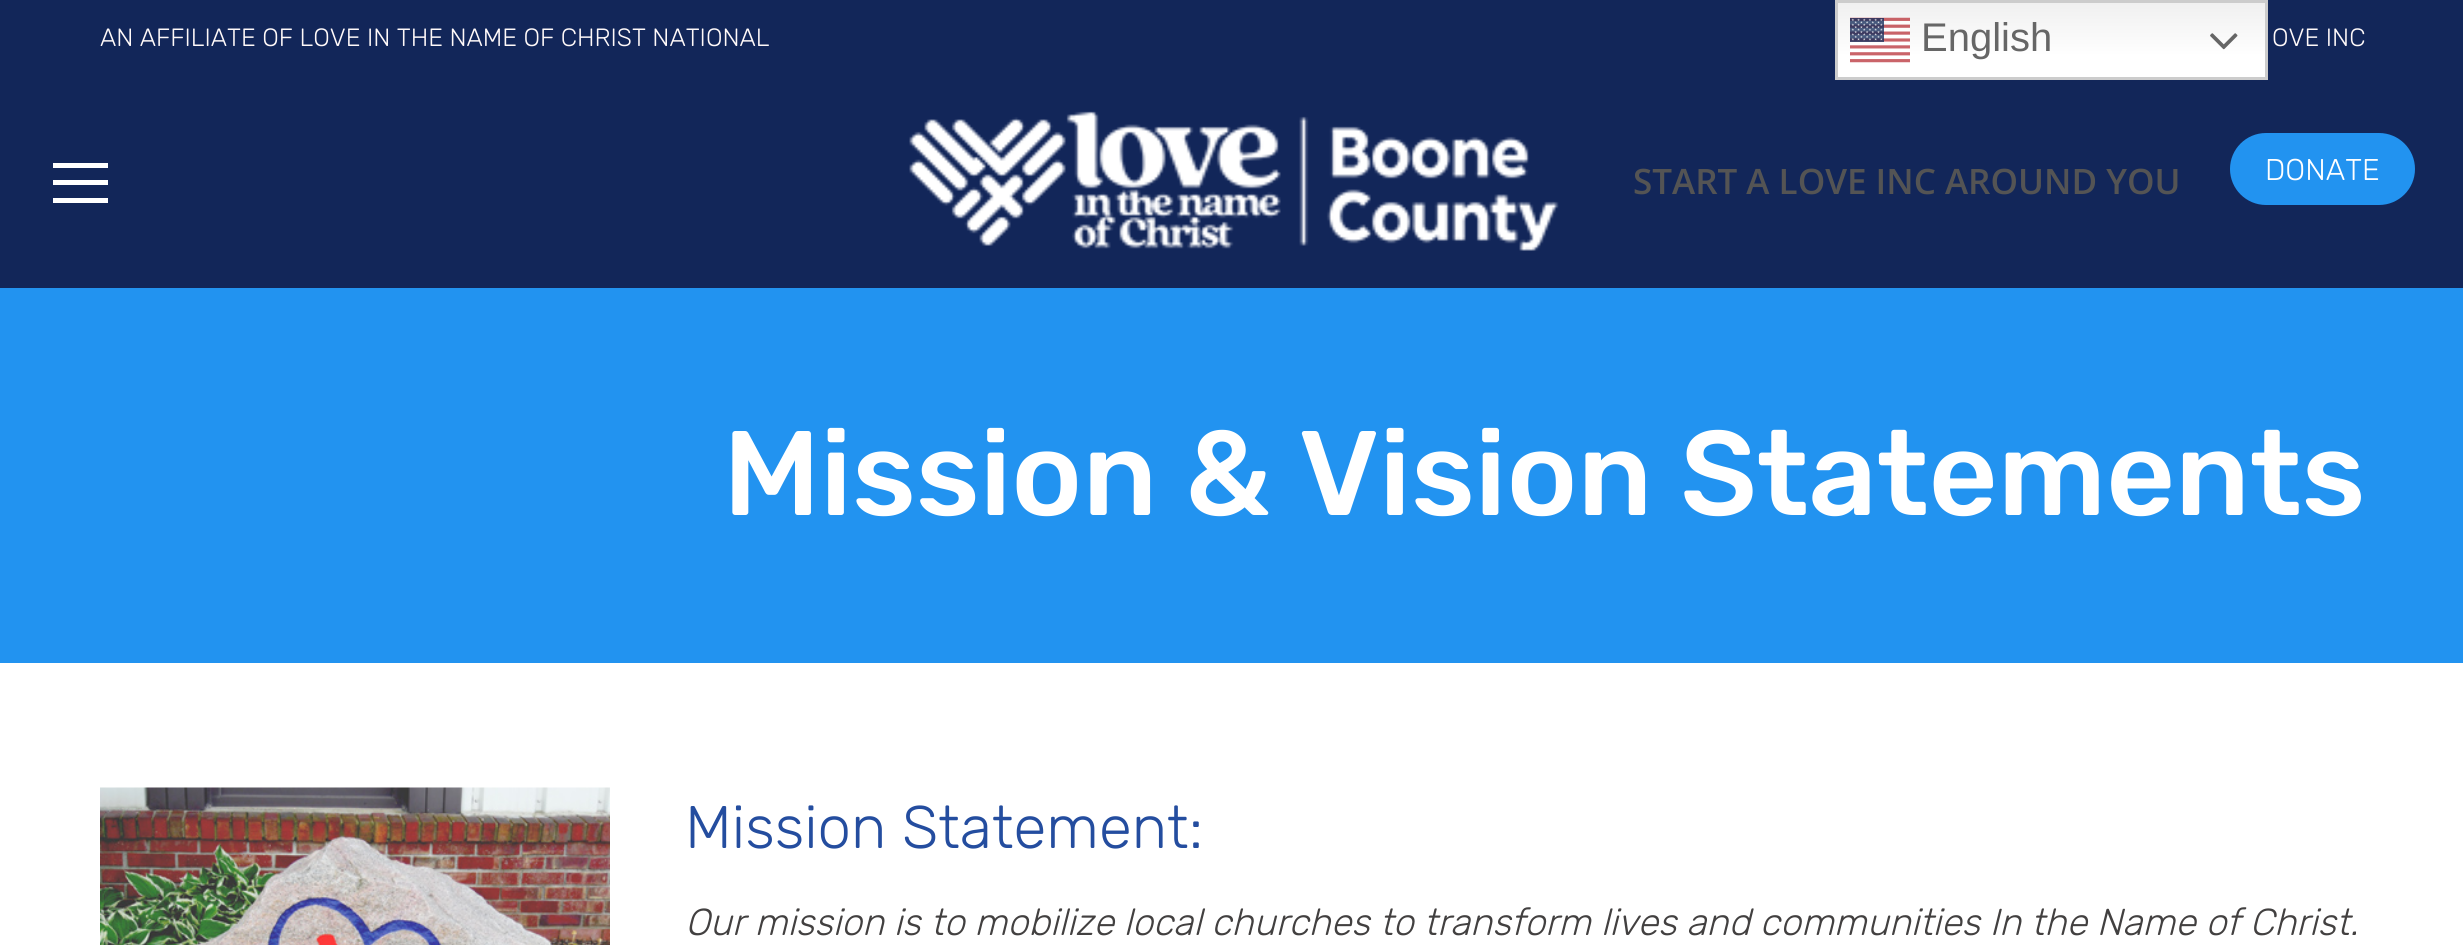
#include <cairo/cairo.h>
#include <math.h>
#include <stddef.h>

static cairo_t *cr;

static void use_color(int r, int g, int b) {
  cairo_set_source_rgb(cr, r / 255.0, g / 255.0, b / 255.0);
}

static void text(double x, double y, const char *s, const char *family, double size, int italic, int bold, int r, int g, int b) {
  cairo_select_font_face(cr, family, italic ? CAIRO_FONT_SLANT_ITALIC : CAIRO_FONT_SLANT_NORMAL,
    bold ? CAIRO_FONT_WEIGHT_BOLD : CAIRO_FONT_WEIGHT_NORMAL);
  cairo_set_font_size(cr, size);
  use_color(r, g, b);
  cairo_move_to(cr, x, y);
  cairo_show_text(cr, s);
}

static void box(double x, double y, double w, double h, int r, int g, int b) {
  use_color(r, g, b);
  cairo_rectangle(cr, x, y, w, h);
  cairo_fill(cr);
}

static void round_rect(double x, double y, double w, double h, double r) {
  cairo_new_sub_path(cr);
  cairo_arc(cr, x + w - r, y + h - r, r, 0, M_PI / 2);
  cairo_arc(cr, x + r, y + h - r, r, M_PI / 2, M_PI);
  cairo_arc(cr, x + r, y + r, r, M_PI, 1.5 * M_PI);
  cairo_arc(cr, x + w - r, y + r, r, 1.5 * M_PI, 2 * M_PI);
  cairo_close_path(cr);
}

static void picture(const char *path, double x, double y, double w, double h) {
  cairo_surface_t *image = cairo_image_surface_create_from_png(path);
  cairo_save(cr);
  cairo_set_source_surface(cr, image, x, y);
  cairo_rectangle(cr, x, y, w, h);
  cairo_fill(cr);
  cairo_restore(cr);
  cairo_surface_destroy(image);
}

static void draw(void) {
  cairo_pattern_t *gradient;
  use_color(255, 255, 255);
  cairo_paint(cr);
  box(0, 0, 2463, 288, 18, 38, 89);
  gradient = cairo_pattern_create_linear(2051, 0, 2051, 80);
  cairo_pattern_add_color_stop_rgba(gradient, 0, 0.937, 0.937, 0.937, 1);
  cairo_pattern_add_color_stop_rgba(gradient, 0.7, 1, 1, 1, 1);
  cairo_set_source(cr, gradient);
  cairo_pattern_destroy(gradient);
  cairo_rectangle(cr, 1838, 3, 427, 74);
  cairo_fill(cr);
  cairo_rectangle(cr, 1836.5, 1.5, 430, 77);
  use_color(204, 204, 204);
  cairo_set_line_width(cr, 3);
  cairo_stroke(cr);
  picture("img_01.png", 1850, 17, 60, 46);
  picture("img_02.png", 2210, 33, 28, 17);
  box(53, 163, 55, 5, 255, 255, 255);
  box(53, 180, 55, 5, 255, 255, 255);
  box(53, 198, 55, 5, 255, 255, 255);
  picture("img_03.png", 909, 111, 650, 140);
  use_color(34, 147, 240);
  round_rect(2230, 133, 185, 72, 36);
  cairo_fill(cr);
  box(0, 288, 2463, 375, 34, 147, 240);
  picture("img_04.png", 100, 787, 510, 158);
  text(1921, 51, "English", "Liberation Sans", 40, 0, 0, 102, 102, 102);
  text(100, 46, "AN AFFILIATE OF LOVE IN THE NAME OF CHRIST NATIONAL", "Rubik Light", 25, 0, 0, 255, 249, 249);
  text(2272, 46, "OVE INC", "Rubik Light", 25, 0, 0, 255, 249, 249);
  text(1633, 194, "START A LOVE INC AROUND YOU", "Open Sans SemiBold", 35, 0, 0, 84, 84, 84);
  text(2265, 180, "DONATE", "Rubik Light", 30, 0, 0, 255, 255, 255);
  text(723, 515, "Mission & Vision Statements", "Rubik Medium", 120, 0, 0, 255, 255, 255);
  text(685, 848, "Mission Statement:", "Rubik Light", 60, 0, 0, 36, 77, 159);
  text(685, 935, "Our mission is to mobilize local churches to transform lives and communities In the Name of Christ.", "Rubik Light", 37.5, 1, 0, 66, 64, 64);
}

int main(void) {
  cairo_surface_t *surface = cairo_image_surface_create(CAIRO_FORMAT_RGB24, 2463, 945);
  cr = cairo_create(surface);
  cairo_font_options_t *options = cairo_font_options_create();
  cairo_font_options_set_hint_metrics(options, CAIRO_HINT_METRICS_OFF);
  cairo_font_options_set_hint_style(options, CAIRO_HINT_STYLE_NONE);
  cairo_set_font_options(cr, options);
  cairo_set_miter_limit(cr, 4);
  draw();
  cairo_surface_write_to_png(surface, "out.png");
  cairo_font_options_destroy(options);
  cairo_destroy(cr);
  cairo_surface_destroy(surface);
  return 0;
}
